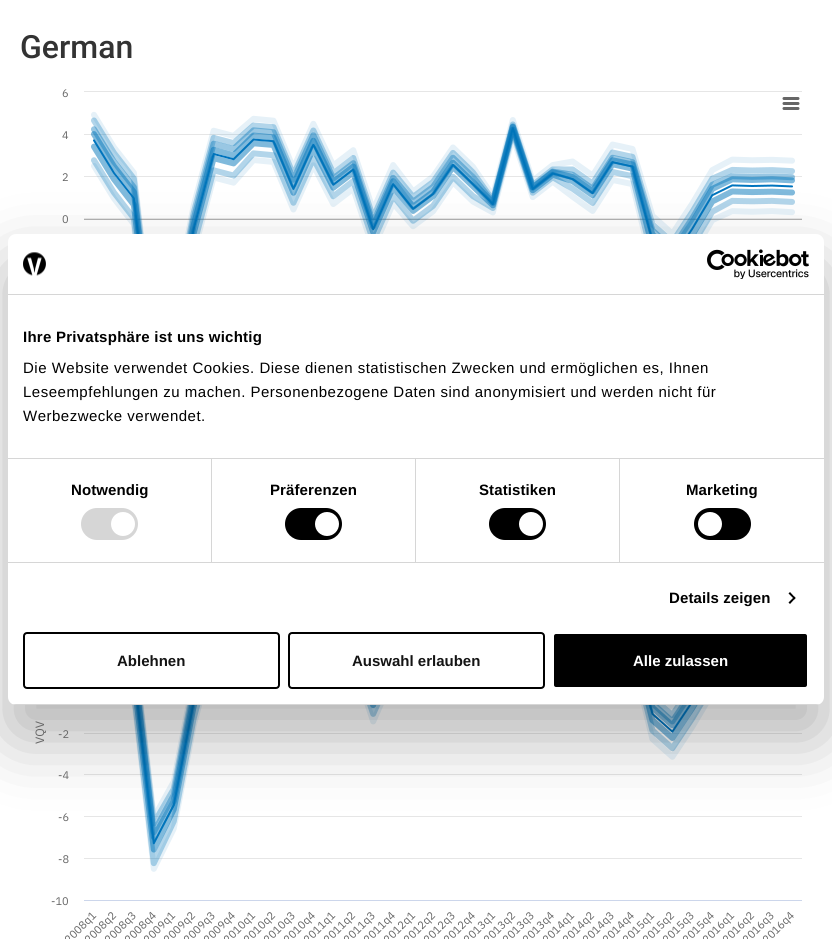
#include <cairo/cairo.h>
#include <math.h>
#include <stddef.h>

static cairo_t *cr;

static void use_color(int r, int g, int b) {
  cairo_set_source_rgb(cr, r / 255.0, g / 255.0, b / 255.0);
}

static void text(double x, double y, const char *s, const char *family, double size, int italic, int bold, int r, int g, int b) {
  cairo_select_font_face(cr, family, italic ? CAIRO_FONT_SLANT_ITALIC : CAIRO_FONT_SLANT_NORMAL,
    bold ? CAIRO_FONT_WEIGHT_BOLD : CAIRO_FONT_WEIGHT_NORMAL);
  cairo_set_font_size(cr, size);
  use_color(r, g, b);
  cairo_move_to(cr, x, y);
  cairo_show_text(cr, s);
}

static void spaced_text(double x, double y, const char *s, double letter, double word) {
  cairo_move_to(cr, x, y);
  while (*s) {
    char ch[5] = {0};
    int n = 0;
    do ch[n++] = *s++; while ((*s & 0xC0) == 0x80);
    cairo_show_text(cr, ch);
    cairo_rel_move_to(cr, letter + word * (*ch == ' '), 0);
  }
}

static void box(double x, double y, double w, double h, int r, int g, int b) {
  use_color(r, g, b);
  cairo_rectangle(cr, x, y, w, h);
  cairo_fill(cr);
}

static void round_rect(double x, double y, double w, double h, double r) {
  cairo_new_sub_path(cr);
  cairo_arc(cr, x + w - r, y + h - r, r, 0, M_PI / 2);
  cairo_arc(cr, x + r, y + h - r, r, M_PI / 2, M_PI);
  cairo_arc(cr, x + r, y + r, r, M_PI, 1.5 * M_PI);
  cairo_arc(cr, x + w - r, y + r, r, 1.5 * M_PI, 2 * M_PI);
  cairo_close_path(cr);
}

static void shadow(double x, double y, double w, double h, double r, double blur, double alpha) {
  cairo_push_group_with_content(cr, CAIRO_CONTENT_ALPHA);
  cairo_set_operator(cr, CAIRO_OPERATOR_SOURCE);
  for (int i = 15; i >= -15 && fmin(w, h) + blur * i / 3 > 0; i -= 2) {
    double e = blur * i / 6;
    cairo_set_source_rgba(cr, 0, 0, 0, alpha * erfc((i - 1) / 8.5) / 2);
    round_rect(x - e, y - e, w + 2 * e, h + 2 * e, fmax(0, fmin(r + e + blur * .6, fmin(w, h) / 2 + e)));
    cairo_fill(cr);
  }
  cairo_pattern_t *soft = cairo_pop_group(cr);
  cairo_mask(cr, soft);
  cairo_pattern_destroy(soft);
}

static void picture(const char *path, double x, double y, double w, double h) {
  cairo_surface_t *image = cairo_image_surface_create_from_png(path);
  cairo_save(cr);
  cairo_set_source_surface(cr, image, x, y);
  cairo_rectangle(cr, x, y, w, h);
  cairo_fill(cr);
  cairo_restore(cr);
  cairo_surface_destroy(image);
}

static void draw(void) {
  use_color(255, 255, 255);
  cairo_paint(cr);
  picture("img_01.png", 84, 91, 718, 143);
  picture("img_02.png", 84, 705, 718, 196);
  use_color(0, 0, 0);
  shadow(8, 266, 816, 471, 8, 34, 0.3);
  use_color(255, 255, 255);
  round_rect(8, 234, 816, 471, 8);
  cairo_fill(cr);
  box(8, 294, 816, 1, 214, 214, 214);
  picture("img_03.png", 23, 252, 23, 24);
  picture("img_04.png", 707, 249, 102, 30);
  box(8, 458, 816, 1, 214, 214, 214);
  box(8, 562, 816, 1, 214, 214, 214);
  box(211, 459, 1, 103, 214, 214, 214);
  round_rect(81, 508, 57, 32, 16);
  cairo_fill(cr);
  use_color(255, 255, 255);
  cairo_arc(cr, 123, 524, 12, 0, 2 * M_PI);
  cairo_fill(cr);
  box(415, 459, 1, 103, 214, 214, 214);
  use_color(0, 0, 0);
  round_rect(285, 508, 57, 32, 16);
  cairo_fill(cr);
  use_color(255, 255, 255);
  cairo_arc(cr, 327, 524, 12, 0, 2 * M_PI);
  cairo_fill(cr);
  box(619, 459, 1, 103, 214, 214, 214);
  use_color(0, 0, 0);
  round_rect(489, 508, 57, 32, 16);
  cairo_fill(cr);
  use_color(255, 255, 255);
  cairo_arc(cr, 531, 524, 12, 0, 2 * M_PI);
  cairo_fill(cr);
  use_color(0, 0, 0);
  round_rect(694, 508, 57, 32, 16);
  cairo_fill(cr);
  use_color(255, 255, 255);
  cairo_arc(cr, 710, 524, 12, 0, 2 * M_PI);
  cairo_fill(cr);
  use_color(0, 0, 0);
  cairo_new_path(cr);
  cairo_move_to(cr, 790, 592);
  cairo_line_to(cr, 795.5, 598);
  cairo_line_to(cr, 794.5, 599.5);
  cairo_line_to(cr, 788.5, 593.5);
  cairo_close_path(cr);
  cairo_fill(cr);
  cairo_new_path(cr);
  cairo_move_to(cr, 794.5, 596.5);
  cairo_line_to(cr, 795.5, 598);
  cairo_line_to(cr, 790, 604);
  cairo_line_to(cr, 788.5, 602.5);
  cairo_close_path(cr);
  cairo_fill(cr);
  cairo_save(cr);
  round_rect(8, 234, 816, 471, 8);
  cairo_clip(cr);
  box(8, 704, 816, 1, 214, 214, 214);
  cairo_restore(cr);
  round_rect(24, 633, 255, 55, 3);
  cairo_stroke(cr);
  round_rect(289, 633, 255, 55, 3);
  cairo_stroke(cr);
  round_rect(553, 633, 255, 55, 3);
  cairo_fill_preserve(cr);
  use_color(255, 255, 255);
  cairo_stroke(cr);
  text(20, 58, "German", "Roboto Medium", 32, 0, 0, 51, 51, 51);
  text(62, 97, "6", "IBM Plex Sans", 11, 0, 0, 102, 102, 102);
  text(62, 139, "4", "IBM Plex Sans", 11, 0, 0, 102, 102, 102);
  text(62, 181, "2", "IBM Plex Sans", 11, 0, 0, 102, 102, 102);
  text(62, 223, "0", "IBM Plex Sans", 11, 0, 0, 102, 102, 102);
  cairo_save(cr);
  cairo_translate(cr, 44, 744);
  cairo_rotate(cr, -90 * M_PI / 180);
  text(0, 0, "VQV", "IBM Plex Sans", 12, 0, 0, 102, 102, 102);
  cairo_restore(cr);
  text(58, 738, "-2", "IBM Plex Sans", 11, 0, 0, 102, 102, 102);
  text(58, 779, "-4", "IBM Plex Sans", 11, 0, 0, 102, 102, 102);
  text(58, 821, "-6", "IBM Plex Sans", 11, 0, 0, 102, 102, 102);
  text(58, 863, "-8", "IBM Plex Sans", 11, 0, 0, 102, 102, 102);
  text(51, 905, "-10", "IBM Plex Sans", 11, 0, 0, 102, 102, 102);
  cairo_save(cr);
  cairo_translate(cr, 69, 944);
  cairo_rotate(cr, -45 * M_PI / 180);
  text(0, 0, "2008q1", "IBM Plex Sans", 11, 0, 0, 102, 102, 102);
  cairo_restore(cr);
  cairo_save(cr);
  cairo_translate(cr, 89, 944);
  cairo_rotate(cr, -45 * M_PI / 180);
  text(0, 0, "2008q2", "IBM Plex Sans", 11, 0, 0, 102, 102, 102);
  cairo_restore(cr);
  cairo_save(cr);
  cairo_translate(cr, 109, 944);
  cairo_rotate(cr, -45 * M_PI / 180);
  text(0, 0, "2008q3", "IBM Plex Sans", 11, 0, 0, 102, 102, 102);
  cairo_restore(cr);
  cairo_save(cr);
  cairo_translate(cr, 129, 944);
  cairo_rotate(cr, -45 * M_PI / 180);
  text(0, 0, "2008q4", "IBM Plex Sans", 11, 0, 0, 102, 102, 102);
  cairo_restore(cr);
  cairo_save(cr);
  cairo_translate(cr, 148, 944);
  cairo_rotate(cr, -45 * M_PI / 180);
  text(0, 0, "2009q1", "IBM Plex Sans", 11, 0, 0, 102, 102, 102);
  cairo_restore(cr);
  cairo_save(cr);
  cairo_translate(cr, 168, 944);
  cairo_rotate(cr, -45 * M_PI / 180);
  text(0, 0, "2009q2", "IBM Plex Sans", 11, 0, 0, 102, 102, 102);
  cairo_restore(cr);
  cairo_save(cr);
  cairo_translate(cr, 188, 944);
  cairo_rotate(cr, -45 * M_PI / 180);
  text(0, 0, "2009q3", "IBM Plex Sans", 11, 0, 0, 102, 102, 102);
  cairo_restore(cr);
  cairo_save(cr);
  cairo_translate(cr, 208, 944);
  cairo_rotate(cr, -45 * M_PI / 180);
  text(0, 0, "2009q4", "IBM Plex Sans", 11, 0, 0, 102, 102, 102);
  cairo_restore(cr);
  cairo_save(cr);
  cairo_translate(cr, 228, 944);
  cairo_rotate(cr, -45 * M_PI / 180);
  text(0, 0, "2010q1", "IBM Plex Sans", 11, 0, 0, 102, 102, 102);
  cairo_restore(cr);
  cairo_save(cr);
  cairo_translate(cr, 248, 944);
  cairo_rotate(cr, -45 * M_PI / 180);
  text(0, 0, "2010q2", "IBM Plex Sans", 11, 0, 0, 102, 102, 102);
  cairo_restore(cr);
  cairo_save(cr);
  cairo_translate(cr, 268, 944);
  cairo_rotate(cr, -45 * M_PI / 180);
  text(0, 0, "2010q3", "IBM Plex Sans", 11, 0, 0, 102, 102, 102);
  cairo_restore(cr);
  cairo_save(cr);
  cairo_translate(cr, 288, 944);
  cairo_rotate(cr, -45 * M_PI / 180);
  text(0, 0, "2010q4", "IBM Plex Sans", 11, 0, 0, 102, 102, 102);
  cairo_restore(cr);
  cairo_save(cr);
  cairo_translate(cr, 308, 944);
  cairo_rotate(cr, -45 * M_PI / 180);
  text(0, 0, "2011q1", "IBM Plex Sans", 11, 0, 0, 102, 102, 102);
  cairo_restore(cr);
  cairo_save(cr);
  cairo_translate(cr, 328, 944);
  cairo_rotate(cr, -45 * M_PI / 180);
  text(0, 0, "2011q2", "IBM Plex Sans", 11, 0, 0, 102, 102, 102);
  cairo_restore(cr);
  cairo_save(cr);
  cairo_translate(cr, 348, 944);
  cairo_rotate(cr, -45 * M_PI / 180);
  text(0, 0, "2011q3", "IBM Plex Sans", 11, 0, 0, 102, 102, 102);
  cairo_restore(cr);
  cairo_save(cr);
  cairo_translate(cr, 368, 944);
  cairo_rotate(cr, -45 * M_PI / 180);
  text(0, 0, "2011q4", "IBM Plex Sans", 11, 0, 0, 102, 102, 102);
  cairo_restore(cr);
  cairo_save(cr);
  cairo_translate(cr, 388, 944);
  cairo_rotate(cr, -45 * M_PI / 180);
  text(0, 0, "2012q1", "IBM Plex Sans", 11, 0, 0, 102, 102, 102);
  cairo_restore(cr);
  cairo_save(cr);
  cairo_translate(cr, 408, 944);
  cairo_rotate(cr, -45 * M_PI / 180);
  text(0, 0, "2012q2", "IBM Plex Sans", 11, 0, 0, 102, 102, 102);
  cairo_restore(cr);
  cairo_save(cr);
  cairo_translate(cr, 428, 944);
  cairo_rotate(cr, -45 * M_PI / 180);
  text(0, 0, "2012q3", "IBM Plex Sans", 11, 0, 0, 102, 102, 102);
  cairo_restore(cr);
  cairo_save(cr);
  cairo_translate(cr, 448, 944);
  cairo_rotate(cr, -45 * M_PI / 180);
  text(0, 0, "2012q4", "IBM Plex Sans", 11, 0, 0, 102, 102, 102);
  cairo_restore(cr);
  cairo_save(cr);
  cairo_translate(cr, 468, 944);
  cairo_rotate(cr, -45 * M_PI / 180);
  text(0, 0, "2013q1", "IBM Plex Sans", 11, 0, 0, 102, 102, 102);
  cairo_restore(cr);
  cairo_save(cr);
  cairo_translate(cr, 488, 944);
  cairo_rotate(cr, -45 * M_PI / 180);
  text(0, 0, "2013q2", "IBM Plex Sans", 11, 0, 0, 102, 102, 102);
  cairo_restore(cr);
  cairo_save(cr);
  cairo_translate(cr, 507, 944);
  cairo_rotate(cr, -45 * M_PI / 180);
  text(0, 0, "2013q3", "IBM Plex Sans", 11, 0, 0, 102, 102, 102);
  cairo_restore(cr);
  cairo_save(cr);
  cairo_translate(cr, 527, 944);
  cairo_rotate(cr, -45 * M_PI / 180);
  text(0, 0, "2013q4", "IBM Plex Sans", 11, 0, 0, 102, 102, 102);
  cairo_restore(cr);
  cairo_save(cr);
  cairo_translate(cr, 547, 944);
  cairo_rotate(cr, -45 * M_PI / 180);
  text(0, 0, "2014q1", "IBM Plex Sans", 11, 0, 0, 102, 102, 102);
  cairo_restore(cr);
  cairo_save(cr);
  cairo_translate(cr, 567, 944);
  cairo_rotate(cr, -45 * M_PI / 180);
  text(0, 0, "2014q2", "IBM Plex Sans", 11, 0, 0, 102, 102, 102);
  cairo_restore(cr);
  cairo_save(cr);
  cairo_translate(cr, 587, 944);
  cairo_rotate(cr, -45 * M_PI / 180);
  text(0, 0, "2014q3", "IBM Plex Sans", 11, 0, 0, 102, 102, 102);
  cairo_restore(cr);
  cairo_save(cr);
  cairo_translate(cr, 607, 944);
  cairo_rotate(cr, -45 * M_PI / 180);
  text(0, 0, "2014q4", "IBM Plex Sans", 11, 0, 0, 102, 102, 102);
  cairo_restore(cr);
  cairo_save(cr);
  cairo_translate(cr, 627, 944);
  cairo_rotate(cr, -45 * M_PI / 180);
  text(0, 0, "2015q1", "IBM Plex Sans", 11, 0, 0, 102, 102, 102);
  cairo_restore(cr);
  cairo_save(cr);
  cairo_translate(cr, 647, 944);
  cairo_rotate(cr, -45 * M_PI / 180);
  text(0, 0, "2015q2", "IBM Plex Sans", 11, 0, 0, 102, 102, 102);
  cairo_restore(cr);
  cairo_save(cr);
  cairo_translate(cr, 667, 944);
  cairo_rotate(cr, -45 * M_PI / 180);
  text(0, 0, "2015q3", "IBM Plex Sans", 11, 0, 0, 102, 102, 102);
  cairo_restore(cr);
  cairo_save(cr);
  cairo_translate(cr, 687, 944);
  cairo_rotate(cr, -45 * M_PI / 180);
  text(0, 0, "2015q4", "IBM Plex Sans", 11, 0, 0, 102, 102, 102);
  cairo_restore(cr);
  cairo_save(cr);
  cairo_translate(cr, 707, 944);
  cairo_rotate(cr, -45 * M_PI / 180);
  text(0, 0, "2016q1", "IBM Plex Sans", 11, 0, 0, 102, 102, 102);
  cairo_restore(cr);
  cairo_save(cr);
  cairo_translate(cr, 727, 944);
  cairo_rotate(cr, -45 * M_PI / 180);
  text(0, 0, "2016q2", "IBM Plex Sans", 11, 0, 0, 102, 102, 102);
  cairo_restore(cr);
  cairo_save(cr);
  cairo_translate(cr, 747, 944);
  cairo_rotate(cr, -45 * M_PI / 180);
  text(0, 0, "2016q3", "IBM Plex Sans", 11, 0, 0, 102, 102, 102);
  cairo_restore(cr);
  cairo_save(cr);
  cairo_translate(cr, 767, 944);
  cairo_rotate(cr, -45 * M_PI / 180);
  text(0, 0, "2016q4", "IBM Plex Sans", 11, 0, 0, 102, 102, 102);
  cairo_restore(cr);
  cairo_select_font_face(cr, "Liberation Sans", CAIRO_FONT_SLANT_NORMAL, CAIRO_FONT_WEIGHT_BOLD);
  cairo_set_font_size(cr, 15);
  use_color(0, 0, 0);
  spaced_text(23, 342, "Ihre Privatsphäre ist uns wichtig", 0.25, 0);
  cairo_select_font_face(cr, "Liberation Sans", CAIRO_FONT_SLANT_NORMAL, CAIRO_FONT_WEIGHT_NORMAL);
  spaced_text(23, 373, "Die Website verwendet Cookies. Diese dienen statistischen Zwecken und ermöglichen es, Ihnen", 0.5, 0);
  spaced_text(23, 397, "Leseempfehlungen zu machen. Personenbezogene Daten sind anonymisiert und werden nicht für", 0.5, 0);
  spaced_text(23, 421, "Werbezwecke verwendet.", 0.5, 0);
  cairo_select_font_face(cr, "Liberation Sans", CAIRO_FONT_SLANT_NORMAL, CAIRO_FONT_WEIGHT_BOLD);
  spaced_text(71, 495, "Notwendig", 0.1, 0);
  spaced_text(270, 495, "Präferenzen", 0.1, 0);
  spaced_text(479, 495, "Statistiken", 0.1, 0);
  spaced_text(686, 495, "Marketing", 0.1, 0);
  spaced_text(669, 603, "Details zeigen", 0.1, 0);
  text(117, 666, "Ablehnen", "Liberation Sans", 15, 0, 1, 20, 20, 20);
  text(352, 666, "Auswahl erlauben", "Liberation Sans", 15, 0, 1, 20, 20, 20);
  text(633, 666, "Alle zulassen", "Liberation Sans", 15, 0, 1, 255, 255, 255);
}

int main(void) {
  cairo_surface_t *surface = cairo_image_surface_create(CAIRO_FORMAT_RGB24, 832, 939);
  cr = cairo_create(surface);
  cairo_font_options_t *options = cairo_font_options_create();
  cairo_font_options_set_hint_metrics(options, CAIRO_HINT_METRICS_OFF);
  cairo_font_options_set_hint_style(options, CAIRO_HINT_STYLE_NONE);
  cairo_set_font_options(cr, options);
  cairo_set_miter_limit(cr, 4);
  draw();
  cairo_surface_write_to_png(surface, "out.png");
  cairo_font_options_destroy(options);
  cairo_destroy(cr);
  cairo_surface_destroy(surface);
  return 0;
}
